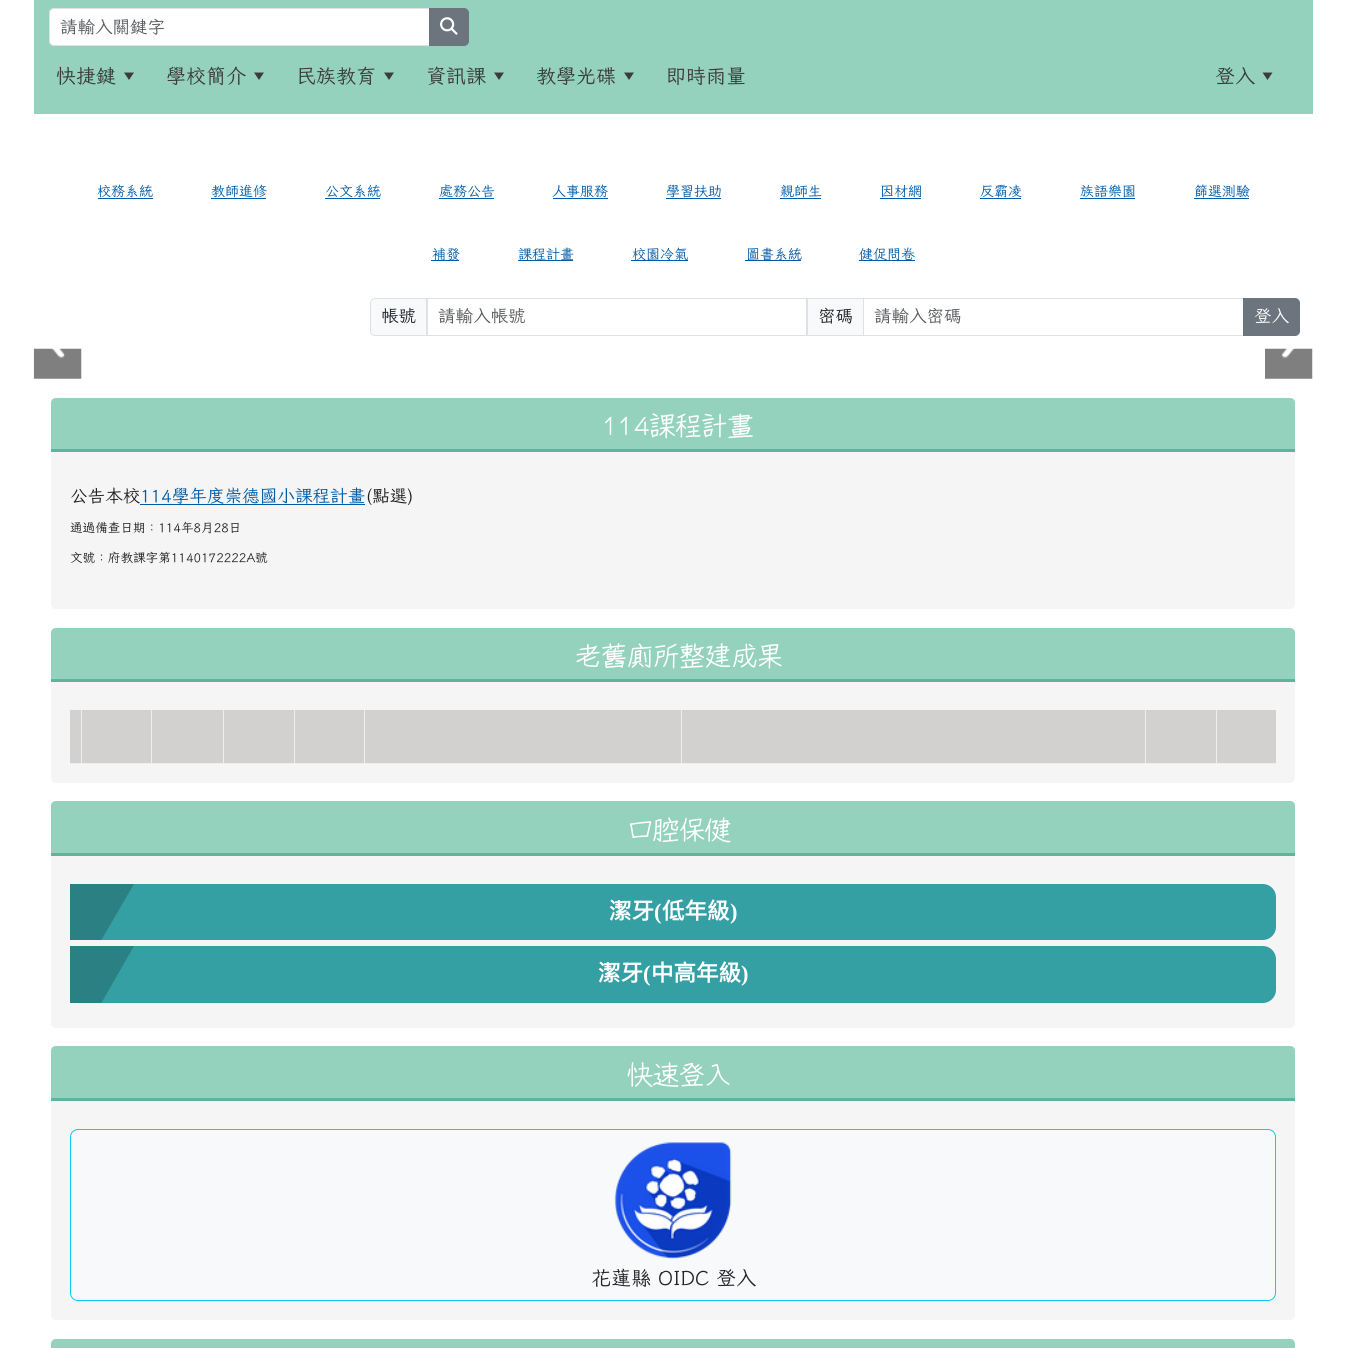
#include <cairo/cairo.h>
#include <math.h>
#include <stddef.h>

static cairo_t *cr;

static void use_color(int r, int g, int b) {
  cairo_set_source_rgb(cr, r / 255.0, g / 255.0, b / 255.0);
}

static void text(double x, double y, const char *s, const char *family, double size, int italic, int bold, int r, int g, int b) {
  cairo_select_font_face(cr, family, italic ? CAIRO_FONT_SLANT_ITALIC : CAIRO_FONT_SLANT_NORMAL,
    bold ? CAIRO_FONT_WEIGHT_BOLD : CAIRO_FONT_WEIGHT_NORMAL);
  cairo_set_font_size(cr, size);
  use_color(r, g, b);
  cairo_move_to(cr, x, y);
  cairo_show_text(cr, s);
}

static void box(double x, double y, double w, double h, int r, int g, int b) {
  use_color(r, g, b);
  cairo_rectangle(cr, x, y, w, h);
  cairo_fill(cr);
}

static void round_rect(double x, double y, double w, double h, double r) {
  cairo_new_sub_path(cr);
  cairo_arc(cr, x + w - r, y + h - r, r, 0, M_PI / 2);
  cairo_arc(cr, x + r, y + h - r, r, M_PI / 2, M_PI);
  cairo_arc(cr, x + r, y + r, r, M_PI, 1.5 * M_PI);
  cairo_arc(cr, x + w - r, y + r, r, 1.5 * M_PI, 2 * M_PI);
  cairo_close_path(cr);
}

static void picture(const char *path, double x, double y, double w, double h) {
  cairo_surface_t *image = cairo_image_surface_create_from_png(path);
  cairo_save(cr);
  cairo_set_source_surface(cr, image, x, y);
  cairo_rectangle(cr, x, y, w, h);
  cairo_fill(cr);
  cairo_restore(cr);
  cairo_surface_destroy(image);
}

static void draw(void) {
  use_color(255, 255, 255);
  cairo_paint(cr);
  box(34, 0, 1279, 114, 148, 210, 189);
  use_color(255, 255, 255);
  cairo_new_path(cr);
  cairo_move_to(cr, 54, 8.5);
  cairo_line_to(cr, 429.5, 8.5);
  cairo_line_to(cr, 429.5, 45.5);
  cairo_line_to(cr, 54, 45.5);
  cairo_curve_to(cr, 51.5, 45.5, 49.5, 43.5, 49.5, 41);
  cairo_line_to(cr, 49.5, 13);
  cairo_curve_to(cr, 49.5, 10.5, 51.5, 8.5, 54, 8.5);
  cairo_close_path(cr);
  cairo_fill_preserve(cr);
  use_color(222, 226, 230);
  cairo_set_line_width(cr, 1);
  cairo_stroke(cr);
  use_color(108, 117, 125);
  cairo_new_path(cr);
  cairo_move_to(cr, 429.5, 8.5);
  cairo_line_to(cr, 464, 8.5);
  cairo_curve_to(cr, 466.5, 8.5, 468.5, 10.5, 468.5, 13);
  cairo_line_to(cr, 468.5, 41);
  cairo_curve_to(cr, 468.5, 43.5, 466.5, 45.5, 464, 45.5);
  cairo_line_to(cr, 429.5, 45.5);
  cairo_close_path(cr);
  cairo_fill_preserve(cr);
  cairo_stroke(cr);
  picture("img_01.png", 440, 17, 18, 18);
  use_color(59, 59, 59);
  cairo_new_path(cr);
  cairo_move_to(cr, 124, 72.5);
  cairo_line_to(cr, 134, 72.5);
  cairo_line_to(cr, 129, 80);
  cairo_close_path(cr);
  cairo_fill(cr);
  cairo_new_path(cr);
  cairo_move_to(cr, 254, 72.5);
  cairo_line_to(cr, 264, 72.5);
  cairo_line_to(cr, 259, 80);
  cairo_close_path(cr);
  cairo_fill(cr);
  cairo_new_path(cr);
  cairo_move_to(cr, 384, 72.5);
  cairo_line_to(cr, 394, 72.5);
  cairo_line_to(cr, 389, 80);
  cairo_close_path(cr);
  cairo_fill(cr);
  cairo_new_path(cr);
  cairo_move_to(cr, 494, 72.5);
  cairo_line_to(cr, 504, 72.5);
  cairo_line_to(cr, 499, 80);
  cairo_close_path(cr);
  cairo_fill(cr);
  cairo_new_path(cr);
  cairo_move_to(cr, 624, 72.5);
  cairo_line_to(cr, 634, 72.5);
  cairo_line_to(cr, 629, 80);
  cairo_close_path(cr);
  cairo_fill(cr);
  cairo_new_path(cr);
  cairo_move_to(cr, 1262.5, 72.5);
  cairo_line_to(cr, 1272.5, 72.5);
  cairo_line_to(cr, 1267.5, 80);
  cairo_close_path(cr);
  cairo_fill(cr);
  box(98, 198, 55, 1, 0, 92, 168);
  box(211, 198, 55, 1, 0, 92, 168);
  box(325, 198, 55, 1, 0, 92, 168);
  box(439, 198, 55, 1, 0, 92, 168);
  box(553, 198, 55, 1, 0, 92, 168);
  box(666, 198, 55, 1, 0, 92, 168);
  box(780, 198, 41, 1, 0, 92, 168);
  box(880, 198, 41, 1, 0, 92, 168);
  box(980, 198, 41, 1, 0, 92, 168);
  box(1080, 198, 55, 1, 0, 92, 168);
  box(1194, 198, 55, 1, 0, 92, 168);
  box(431, 260, 28, 1, 0, 92, 168);
  box(518, 260, 55, 1, 0, 92, 168);
  box(631, 260, 57, 1, 0, 92, 168);
  box(745, 260, 56, 1, 0, 92, 168);
  box(859, 260, 56, 1, 0, 92, 168);
  use_color(248, 249, 250);
  cairo_new_path(cr);
  cairo_move_to(cr, 375, 298.5);
  cairo_line_to(cr, 427.5, 298.5);
  cairo_line_to(cr, 427.5, 335.5);
  cairo_line_to(cr, 375, 335.5);
  cairo_curve_to(cr, 372.5, 335.5, 370.5, 333.5, 370.5, 331);
  cairo_line_to(cr, 370.5, 303);
  cairo_curve_to(cr, 370.5, 300.5, 372.5, 298.5, 375, 298.5);
  cairo_close_path(cr);
  cairo_fill_preserve(cr);
  use_color(222, 226, 230);
  cairo_stroke(cr);
  box(808, 299, 55, 36, 248, 249, 250);
  cairo_rectangle(cr, 806.5, 298.5, 57, 37);
  use_color(222, 226, 230);
  cairo_stroke(cr);
  cairo_rectangle(cr, 426.5, 298.5, 381, 37);
  cairo_stroke(cr);
  cairo_rectangle(cr, 863.5, 298.5, 380, 37);
  cairo_stroke(cr);
  use_color(108, 117, 125);
  cairo_new_path(cr);
  cairo_move_to(cr, 1243.5, 298.5);
  cairo_line_to(cr, 1295, 298.5);
  cairo_curve_to(cr, 1297.5, 298.5, 1299.5, 300.5, 1299.5, 303);
  cairo_line_to(cr, 1299.5, 331);
  cairo_curve_to(cr, 1299.5, 333.5, 1297.5, 335.5, 1295, 335.5);
  cairo_line_to(cr, 1243.5, 335.5);
  cairo_close_path(cr);
  cairo_fill_preserve(cr);
  cairo_stroke(cr);
  picture("img_02.png", 33, 348, 49, 31);
  picture("img_03.png", 1265, 348, 48, 31);
  use_color(245, 245, 245);
  round_rect(51, 398, 1244, 211, 5);
  cairo_fill(cr);
  use_color(148, 210, 189);
  cairo_new_path(cr);
  cairo_move_to(cr, 56, 398);
  cairo_line_to(cr, 1290, 398);
  cairo_curve_to(cr, 1293, 398, 1295, 400, 1295, 403);
  cairo_line_to(cr, 1295, 451);
  cairo_line_to(cr, 51, 451);
  cairo_line_to(cr, 51, 403);
  cairo_curve_to(cr, 51, 400, 53, 398, 56, 398);
  cairo_close_path(cr);
  cairo_fill(cr);
  box(51, 449, 1244, 3, 95, 180, 156);
  box(140, 504, 225, 1, 0, 92, 168);
  use_color(245, 245, 245);
  round_rect(51, 628, 1244, 155, 5);
  cairo_fill(cr);
  use_color(148, 210, 189);
  cairo_new_path(cr);
  cairo_move_to(cr, 56, 628);
  cairo_line_to(cr, 1290, 628);
  cairo_curve_to(cr, 1293, 628, 1295, 630, 1295, 633);
  cairo_line_to(cr, 1295, 681);
  cairo_line_to(cr, 51, 681);
  cairo_line_to(cr, 51, 633);
  cairo_curve_to(cr, 51, 630, 53, 628, 56, 628);
  cairo_close_path(cr);
  cairo_fill(cr);
  box(51, 679, 1244, 3, 95, 180, 156);
  box(70, 763, 1206, 1, 238, 238, 238);
  box(70, 710, 153, 53, 211, 208, 208);
  box(81, 710, 1, 53, 238, 238, 238);
  box(151, 710, 1, 53, 238, 238, 238);
  box(223, 710, 1, 53, 238, 238, 238);
  box(224, 710, 70, 53, 211, 208, 208);
  box(294, 710, 1, 53, 238, 238, 238);
  box(295, 710, 69, 53, 211, 208, 208);
  box(364, 710, 1, 53, 238, 238, 238);
  box(365, 710, 780, 53, 211, 208, 208);
  box(681, 710, 1, 53, 238, 238, 238);
  box(1145, 710, 1, 53, 238, 238, 238);
  box(1146, 710, 130, 53, 211, 208, 208);
  box(1216, 710, 1, 53, 238, 238, 238);
  use_color(245, 245, 245);
  round_rect(51, 801, 1244, 227, 5);
  cairo_fill(cr);
  use_color(148, 210, 189);
  cairo_new_path(cr);
  cairo_move_to(cr, 56, 801);
  cairo_line_to(cr, 1290, 801);
  cairo_curve_to(cr, 1293, 801, 1295, 803, 1295, 806);
  cairo_line_to(cr, 1295, 855);
  cairo_line_to(cr, 51, 855);
  cairo_line_to(cr, 51, 806);
  cairo_curve_to(cr, 51, 803, 53, 801, 56, 801);
  cairo_close_path(cr);
  cairo_fill(cr);
  box(51, 853, 1244, 3, 95, 180, 156);
  use_color(52, 160, 164);
  cairo_new_path(cr);
  cairo_move_to(cr, 70, 884);
  cairo_line_to(cr, 1263, 884);
  cairo_curve_to(cr, 1270, 884, 1276, 890, 1276, 897);
  cairo_line_to(cr, 1276, 927);
  cairo_curve_to(cr, 1276, 934, 1270, 940, 1263, 940);
  cairo_line_to(cr, 70, 940);
  cairo_close_path(cr);
  cairo_fill(cr);
  cairo_save(cr);
  cairo_rectangle(cr, 70, 884, 1206, 56);
  cairo_clip(cr);
  use_color(42, 128, 131);
  cairo_new_path(cr);
  cairo_move_to(cr, 51, 949);
  cairo_line_to(cr, 51, 914);
  cairo_line_to(cr, 85, 856);
  cairo_line_to(cr, 134, 884);
  cairo_line_to(cr, 85, 968);
  cairo_close_path(cr);
  cairo_fill(cr);
  cairo_restore(cr);
  cairo_new_path(cr);
  cairo_move_to(cr, 70, 946);
  cairo_line_to(cr, 1263, 946);
  cairo_curve_to(cr, 1270, 946, 1276, 952, 1276, 959);
  cairo_line_to(cr, 1276, 990);
  cairo_curve_to(cr, 1276, 997, 1270, 1003, 1263, 1003);
  cairo_line_to(cr, 70, 1003);
  cairo_close_path(cr);
  cairo_fill(cr);
  cairo_save(cr);
  cairo_rectangle(cr, 70, 946, 1206, 57);
  cairo_clip(cr);
  use_color(42, 128, 131);
  cairo_new_path(cr);
  cairo_move_to(cr, 51, 1012);
  cairo_line_to(cr, 51, 977);
  cairo_line_to(cr, 85, 918);
  cairo_line_to(cr, 134, 946);
  cairo_line_to(cr, 87, 1028);
  cairo_line_to(cr, 80, 1028);
  cairo_close_path(cr);
  cairo_fill(cr);
  cairo_restore(cr);
  use_color(245, 245, 245);
  round_rect(51, 1046, 1244, 274, 5);
  cairo_fill(cr);
  use_color(148, 210, 189);
  cairo_new_path(cr);
  cairo_move_to(cr, 56, 1046);
  cairo_line_to(cr, 1290, 1046);
  cairo_curve_to(cr, 1293, 1046, 1295, 1048, 1295, 1051);
  cairo_line_to(cr, 1295, 1100);
  cairo_line_to(cr, 51, 1100);
  cairo_line_to(cr, 51, 1051);
  cairo_curve_to(cr, 51, 1048, 53, 1046, 56, 1046);
  cairo_close_path(cr);
  cairo_fill(cr);
  box(51, 1098, 1244, 3, 95, 180, 156);
  use_color(248, 249, 250);
  round_rect(70.5, 1129.5, 1205, 171, 7.5);
  cairo_fill_preserve(cr);
  use_color(13, 202, 240);
  cairo_stroke(cr);
  picture("img_04.png", 614, 1142, 118, 117);
  use_color(148, 210, 189);
  cairo_new_path(cr);
  cairo_move_to(cr, 56, 1339);
  cairo_line_to(cr, 1290, 1339);
  cairo_curve_to(cr, 1293, 1339, 1295, 1341, 1295, 1344);
  cairo_line_to(cr, 1295, 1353);
  cairo_line_to(cr, 51, 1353);
  cairo_line_to(cr, 51, 1344);
  cairo_curve_to(cr, 51, 1341, 53, 1339, 56, 1339);
  cairo_close_path(cr);
  cairo_fill(cr);
  text(60, 33, "請輸入關鍵字", "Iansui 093", 17.5, 0, 0, 89, 92, 95);
  text(56, 83, "快捷鍵", "Iansui 093", 20, 0, 0, 59, 59, 59);
  text(166, 83, "學校簡介", "Iansui 093", 20, 0, 0, 59, 59, 59);
  text(296, 83, "民族教育", "Iansui 093", 20, 0, 0, 59, 59, 59);
  text(426, 83, "資訊課", "Iansui 093", 20, 0, 0, 59, 59, 59);
  text(536, 83, "教學光碟", "Iansui 093", 20, 0, 0, 59, 59, 59);
  text(666, 83, "即時雨量", "Iansui 093", 20, 0, 0, 59, 59, 59);
  text(1215, 83, "登入", "Iansui 093", 20, 0, 0, 59, 59, 59);
  text(97, 196, "校務系統", "Iansui 093", 14, 0, 0, 0, 92, 168);
  text(211, 196, "教師進修", "Iansui 093", 14, 0, 0, 0, 92, 168);
  text(325, 196, "公文系統", "Iansui 093", 14, 0, 0, 0, 92, 168);
  text(439, 196, "處務公告", "Iansui 093", 14, 0, 0, 0, 92, 168);
  text(552, 196, "人事服務", "Iansui 093", 14, 0, 0, 0, 92, 168);
  text(666, 196, "學習扶助", "Iansui 093", 14, 0, 0, 0, 92, 168);
  text(780, 196, "親師生", "Iansui 093", 14, 0, 0, 0, 92, 168);
  text(880, 196, "因材網", "Iansui 093", 14, 0, 0, 0, 92, 168);
  text(980, 196, "反霸凌", "Iansui 093", 14, 0, 0, 0, 92, 168);
  text(1080, 196, "族語樂園", "Iansui 093", 14, 0, 0, 0, 92, 168);
  text(1194, 196, "篩選測驗", "Iansui 093", 14, 0, 0, 0, 92, 168);
  text(432, 259, "補發", "Iansui 093", 14, 0, 0, 0, 92, 168);
  text(518, 259, "課程計畫", "Iansui 093", 14, 0, 0, 0, 92, 168);
  text(632, 259, "校園冷氣", "Iansui 093", 14, 0, 0, 0, 92, 168);
  text(746, 259, "圖書系統", "Iansui 093", 14, 0, 0, 0, 92, 168);
  text(859, 259, "健促問卷", "Iansui 093", 14, 0, 0, 0, 92, 168);
  text(381, 322, "帳號", "Iansui 093", 17.5, 0, 0, 33, 37, 41);
  cairo_save(cr);
  cairo_rectangle(cr, 438, 308, 358, 17);
  cairo_clip(cr);
  text(438, 322, "請輸入帳號", "Iansui 093", 17.5, 0, 0, 89, 92, 95);
  cairo_restore(cr);
  text(818, 322, "密碼", "Iansui 093", 17.5, 0, 0, 33, 37, 41);
  cairo_save(cr);
  cairo_rectangle(cr, 874, 308, 359, 17);
  cairo_clip(cr);
  text(874, 322, "請輸入密碼", "Iansui 093", 17.5, 0, 0, 89, 92, 95);
  cairo_restore(cr);
  text(1254, 322, "登入", "Iansui 093", 17.5, 0, 0, 255, 255, 255);
  text(603, 435, "114課程計畫", "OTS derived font", 26, 0, 0, 255, 255, 255);
  text(70, 502, "公告本校", "Iansui 093", 17.6, 0, 0, 32, 32, 32);
  text(140, 502, "114學年度崇德國小課程計畫", "Iansui 093", 17.6, 0, 0, 0, 92, 168);
  text(366, 502, "(點選)", "Iansui 093", 17.6, 0, 0, 32, 32, 32);
  text(70, 532, "通過備查日期：114年8月28日", "Iansui 093", 12.6, 0, 0, 32, 32, 32);
  text(70, 562, "文號：府教課字第1140172222A號", "Iansui 093", 12.6, 0, 0, 32, 32, 32);
  text(575, 665, "老舊廁所整建成果", "OTS derived font", 26, 0, 0, 255, 255, 255);
  text(627, 839, "口腔保健", "OTS derived font", 26, 0, 0, 255, 255, 255);
  text(609, 919, "潔牙", "Noto Sans CJK TC", 22.5, 0, 1, 255, 255, 255);
  text(654, 919, "(", "Liberation Serif", 22.5, 0, 1, 255, 255, 255);
  text(662, 919, "低年級", "Noto Sans CJK TC", 22.5, 0, 1, 255, 255, 255);
  text(730, 919, ")", "Liberation Serif", 22.5, 0, 1, 255, 255, 255);
  text(598, 981, "潔牙", "Noto Sans CJK TC", 22.5, 0, 1, 255, 255, 255);
  text(643, 981, "(", "Liberation Serif", 22.5, 0, 1, 255, 255, 255);
  text(651, 981, "中高年級", "Noto Sans CJK TC", 22.5, 0, 1, 255, 255, 255);
  text(741, 981, ")", "Liberation Serif", 22.5, 0, 1, 255, 255, 255);
  text(627, 1084, "快速登入", "OTS derived font", 26, 0, 0, 255, 255, 255);
  text(591, 1285, "花蓮縣 OIDC 登入", "Iansui 093", 20, 0, 0, 33, 37, 41);
}

int main(void) {
  cairo_surface_t *surface = cairo_image_surface_create(CAIRO_FORMAT_RGB24, 1346, 1348);
  cr = cairo_create(surface);
  cairo_font_options_t *options = cairo_font_options_create();
  cairo_font_options_set_hint_metrics(options, CAIRO_HINT_METRICS_OFF);
  cairo_font_options_set_hint_style(options, CAIRO_HINT_STYLE_NONE);
  cairo_set_font_options(cr, options);
  cairo_set_miter_limit(cr, 4);
  draw();
  cairo_surface_write_to_png(surface, "out.png");
  cairo_font_options_destroy(options);
  cairo_destroy(cr);
  cairo_surface_destroy(surface);
  return 0;
}
